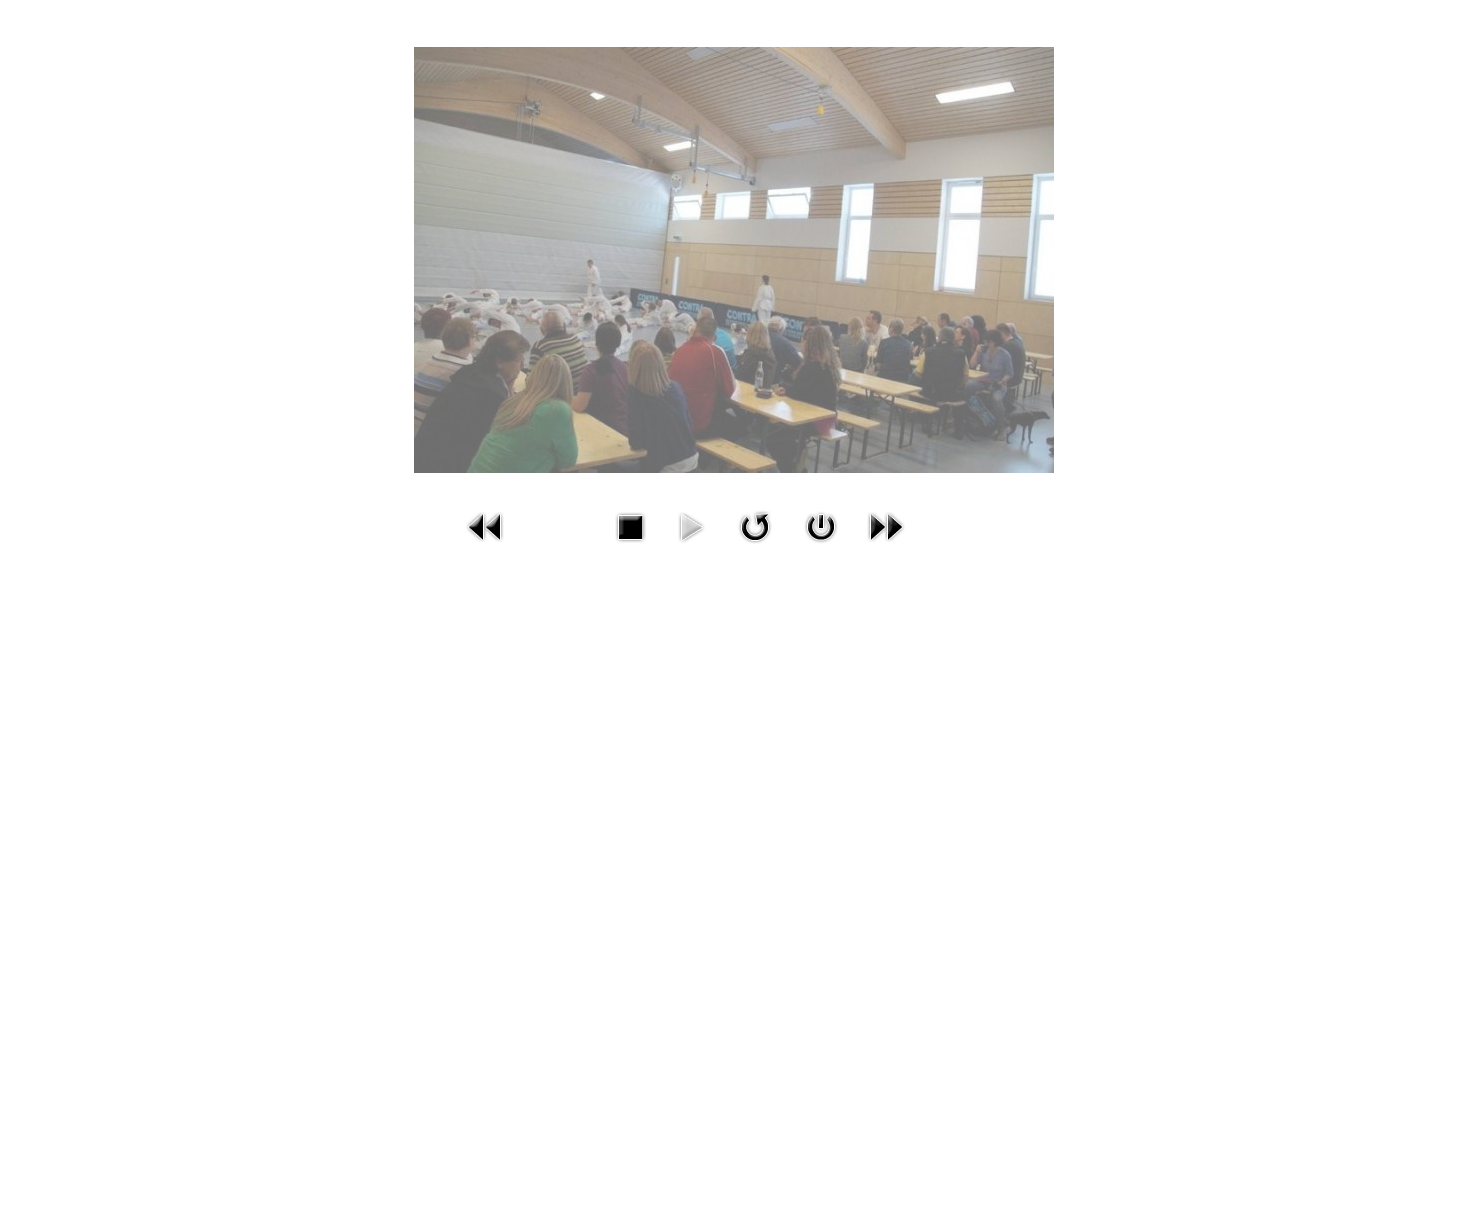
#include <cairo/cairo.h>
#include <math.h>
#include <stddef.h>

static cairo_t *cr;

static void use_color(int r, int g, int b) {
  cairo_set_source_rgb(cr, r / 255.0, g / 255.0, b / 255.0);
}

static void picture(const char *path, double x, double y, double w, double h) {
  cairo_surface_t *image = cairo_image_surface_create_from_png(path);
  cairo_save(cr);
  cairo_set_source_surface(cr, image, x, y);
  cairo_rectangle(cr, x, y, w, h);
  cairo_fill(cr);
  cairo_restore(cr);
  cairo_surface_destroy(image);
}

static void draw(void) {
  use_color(255, 255, 255);
  cairo_paint(cr);
  picture("img_01.png", 414, 47, 640, 426);
  picture("img_02.png", 466, 512, 38, 30);
  picture("img_03.png", 615, 512, 31, 31);
  picture("img_04.png", 678, 512, 27, 31);
  picture("img_05.png", 738, 510, 34, 34);
  picture("img_06.png", 804, 511, 34, 33);
  picture("img_07.png", 867, 512, 38, 30);
}

int main(void) {
  cairo_surface_t *surface = cairo_image_surface_create(CAIRO_FORMAT_RGB24, 1468, 1212);
  cr = cairo_create(surface);
  cairo_font_options_t *options = cairo_font_options_create();
  cairo_font_options_set_hint_metrics(options, CAIRO_HINT_METRICS_OFF);
  cairo_font_options_set_hint_style(options, CAIRO_HINT_STYLE_NONE);
  cairo_set_font_options(cr, options);
  cairo_set_miter_limit(cr, 4);
  draw();
  cairo_surface_write_to_png(surface, "out.png");
  cairo_font_options_destroy(options);
  cairo_destroy(cr);
  cairo_surface_destroy(surface);
  return 0;
}
